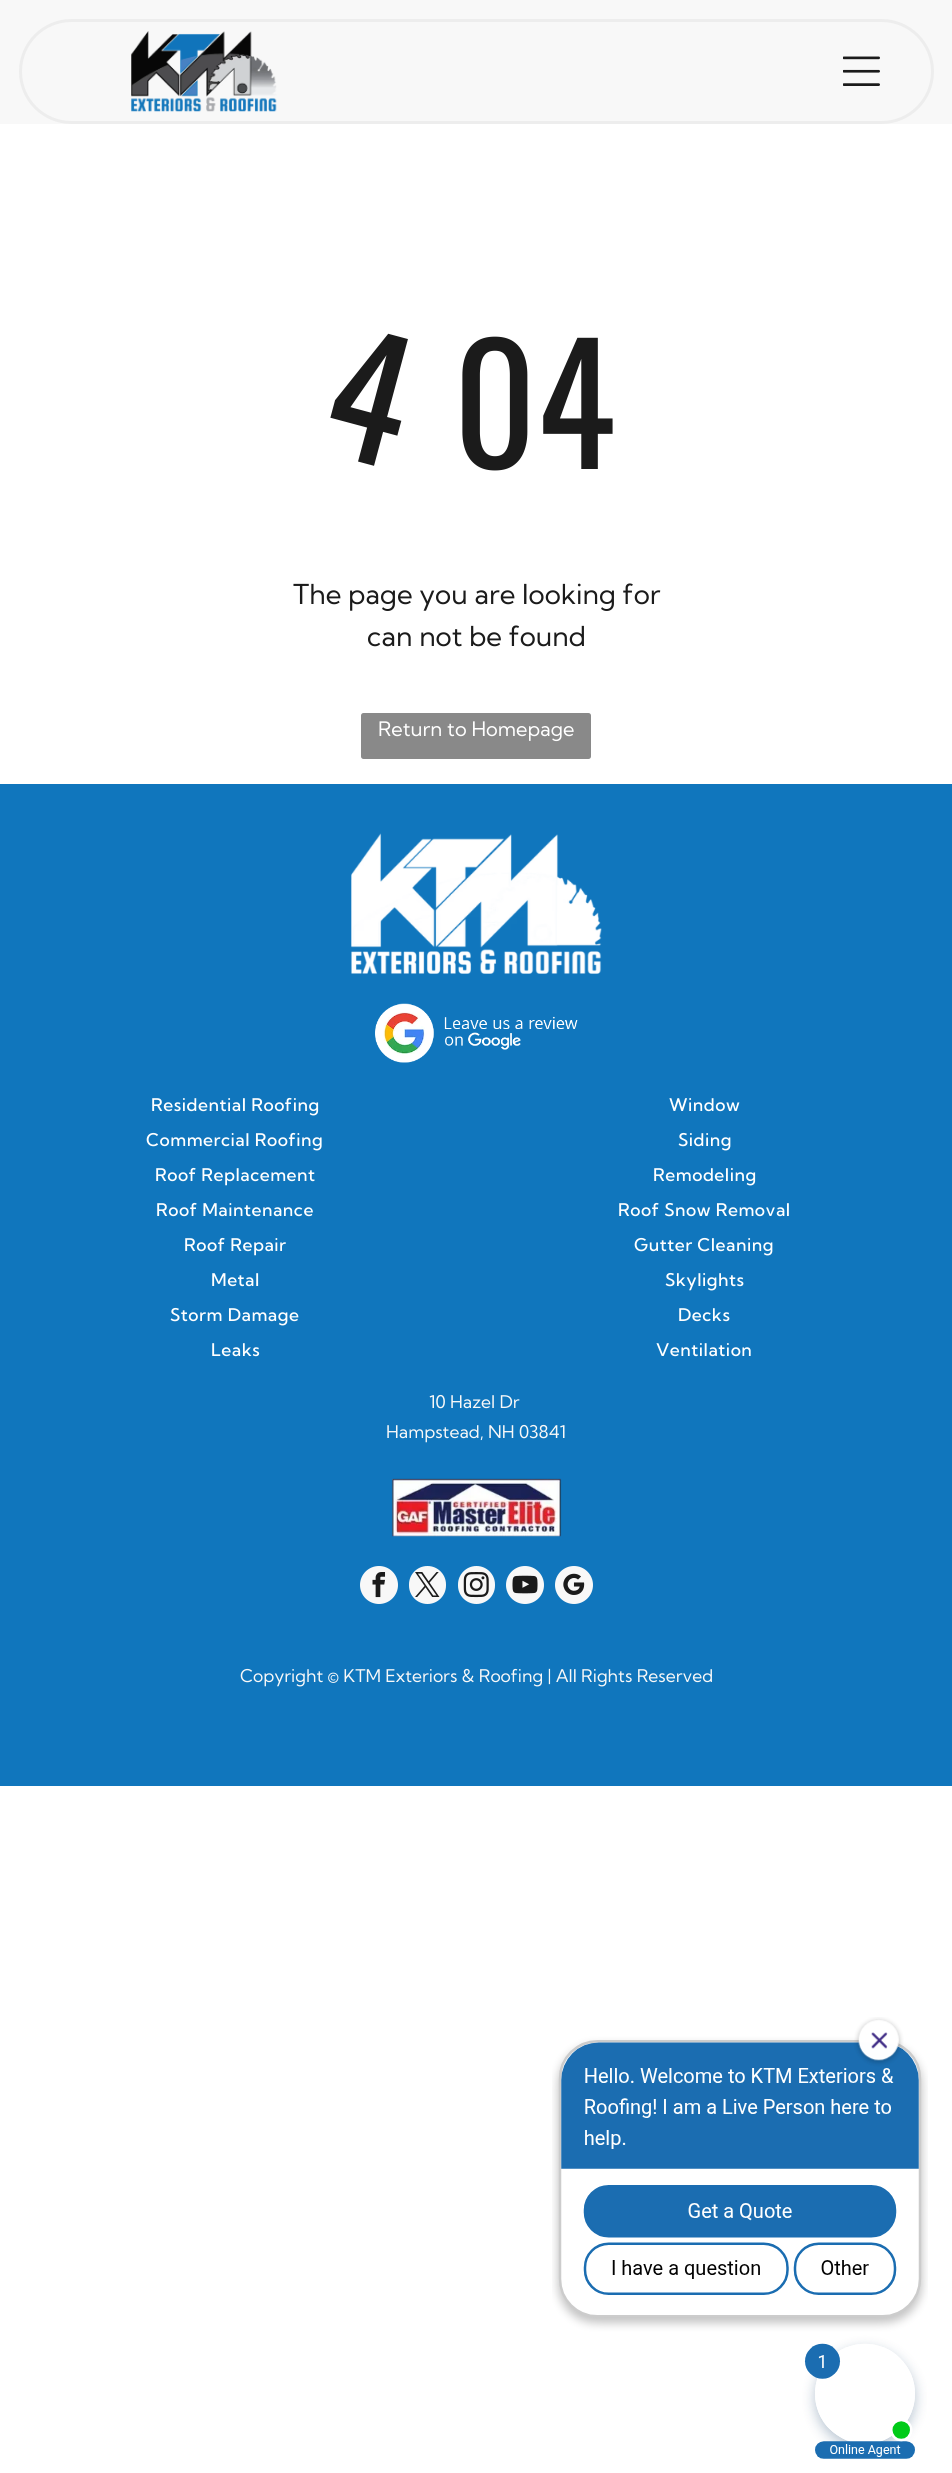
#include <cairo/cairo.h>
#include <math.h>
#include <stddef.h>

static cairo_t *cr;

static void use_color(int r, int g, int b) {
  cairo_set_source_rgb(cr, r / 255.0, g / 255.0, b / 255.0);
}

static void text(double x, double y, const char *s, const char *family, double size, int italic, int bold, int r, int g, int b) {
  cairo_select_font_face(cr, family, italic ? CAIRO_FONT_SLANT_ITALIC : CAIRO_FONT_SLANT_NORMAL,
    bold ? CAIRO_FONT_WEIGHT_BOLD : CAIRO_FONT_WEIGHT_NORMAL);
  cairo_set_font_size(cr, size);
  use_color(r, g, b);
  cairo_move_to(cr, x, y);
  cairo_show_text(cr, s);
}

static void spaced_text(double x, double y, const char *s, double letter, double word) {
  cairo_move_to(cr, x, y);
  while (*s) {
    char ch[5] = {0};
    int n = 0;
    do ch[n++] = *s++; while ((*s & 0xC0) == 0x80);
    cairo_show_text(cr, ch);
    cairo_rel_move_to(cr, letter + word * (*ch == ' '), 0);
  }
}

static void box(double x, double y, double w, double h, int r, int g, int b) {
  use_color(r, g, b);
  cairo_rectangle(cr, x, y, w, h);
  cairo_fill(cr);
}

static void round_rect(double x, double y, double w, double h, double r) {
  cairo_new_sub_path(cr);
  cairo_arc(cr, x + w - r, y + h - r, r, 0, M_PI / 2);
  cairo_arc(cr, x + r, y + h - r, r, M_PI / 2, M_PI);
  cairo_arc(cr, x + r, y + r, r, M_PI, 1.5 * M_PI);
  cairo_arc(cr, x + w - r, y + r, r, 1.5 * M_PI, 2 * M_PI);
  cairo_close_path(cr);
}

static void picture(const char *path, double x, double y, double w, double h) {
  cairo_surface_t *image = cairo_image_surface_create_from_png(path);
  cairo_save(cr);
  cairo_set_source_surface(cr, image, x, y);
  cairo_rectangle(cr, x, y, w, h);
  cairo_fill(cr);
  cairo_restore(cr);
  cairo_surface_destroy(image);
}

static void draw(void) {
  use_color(255, 255, 255);
  cairo_paint(cr);
  box(0, 0, 952, 124, 248, 248, 248);
  round_rect(20.5, 20.5, 912, 102, 51);
  use_color(237, 237, 237);
  cairo_set_line_width(cr, 3);
  cairo_stroke(cr);
  picture("img_01.png", 131, 31, 146, 81);
  picture("img_02.png", 843, 56, 37, 30);
  use_color(137, 137, 137);
  round_rect(361, 713, 230, 46, 2.5);
  cairo_fill(cr);
  box(0, 784, 952, 1002, 16, 118, 189);
  picture("img_03.png", 351, 833, 251, 141);
  picture("img_04.png", 375, 1003, 203, 60);
  picture("img_05.png", 391, 1478, 171, 59);
  use_color(248, 248, 248);
  cairo_arc(cr, 379, 1585, 19, 0, 2 * M_PI);
  cairo_fill(cr);
  picture("img_06.png", 372, 1572, 14, 26);
  round_rect(409, 1566, 37, 38, 18.5);
  cairo_fill(cr);
  picture("img_07.png", 415, 1572, 25, 25);
  round_rect(458, 1566, 37, 38, 18.5);
  cairo_fill(cr);
  picture("img_08.png", 463, 1572, 26, 26);
  cairo_arc(cr, 525, 1585, 19, 0, 2 * M_PI);
  cairo_fill(cr);
  picture("img_09.png", 512, 1575, 26, 19);
  cairo_arc(cr, 574, 1585, 19, 0, 2 * M_PI);
  cairo_fill(cr);
  picture("img_10.png", 563, 1573, 22, 22);
  picture("img_11.png", 552, 2017, 376, 442);
  cairo_save(cr);
  cairo_translate(cr, 315, 450);
  cairo_rotate(cr, 15 * M_PI / 180);
  text(0, 0, "4", "Oswald", 162, 0, 0, 27, 27, 27);
  cairo_restore(cr);
  text(453, 469, "04", "Oswald", 162, 0, 0, 27, 27, 27);
  text(293, 604, "The page you are looking for", "Kumbh Sans", 27.5, 0, 0, 27, 27, 27);
  text(367, 646, "can not be found", "Kumbh Sans", 27.5, 0, 0, 27, 27, 27);
  text(378, 736, "Return to Homepage", "Kumbh Sans", 20, 0, 0, 255, 255, 255);
  cairo_select_font_face(cr, "Kumbh Sans Medium", CAIRO_FONT_SLANT_NORMAL, CAIRO_FONT_WEIGHT_NORMAL);
  cairo_set_font_size(cr, 17.5);
  spaced_text(151, 1111, "Residential Roofing", 0.5, 0);
  spaced_text(146, 1146, "Commercial Roofing", 0.5, 0);
  spaced_text(155, 1181, "Roof Replacement", 0.5, 0);
  spaced_text(156, 1216, "Roof Maintenance", 0.5, 0);
  spaced_text(184, 1251, "Roof Repair", 0.5, 0);
  spaced_text(211, 1286, "Metal", 0.5, 0);
  spaced_text(170, 1321, "Storm Damage", 0.5, 0);
  spaced_text(211, 1356, "Leaks", 0.5, 0);
  spaced_text(669, 1111, "Window", 0.5, 0);
  spaced_text(678, 1146, "Siding", 0.5, 0);
  spaced_text(653, 1181, "Remodeling", 0.5, 0);
  spaced_text(618, 1216, "Roof Snow Removal", 0.5, 0);
  spaced_text(634, 1251, "Gutter Cleaning", 0.5, 0);
  spaced_text(665, 1286, "Skylights", 0.5, 0);
  spaced_text(678, 1321, "Decks", 0.5, 0);
  spaced_text(656, 1356, "Ventilation", 0.5, 0);
  text(429, 1408, "10 Hazel Dr", "Kumbh Sans", 17.5, 0, 0, 248, 248, 248);
  text(386, 1438, "Hampstead, NH 03841", "Kumbh Sans", 17.5, 0, 0, 248, 248, 248);
  text(240, 1682, "Copyright © KTM Exteriors & Roofing | All Rights Reserved", "Kumbh Sans", 17.5, 0, 0, 248, 248, 248);
}

int main(void) {
  cairo_surface_t *surface = cairo_image_surface_create(CAIRO_FORMAT_RGB24, 952, 2473);
  cr = cairo_create(surface);
  cairo_font_options_t *options = cairo_font_options_create();
  cairo_font_options_set_hint_metrics(options, CAIRO_HINT_METRICS_OFF);
  cairo_font_options_set_hint_style(options, CAIRO_HINT_STYLE_NONE);
  cairo_set_font_options(cr, options);
  cairo_set_miter_limit(cr, 4);
  draw();
  cairo_surface_write_to_png(surface, "out.png");
  cairo_font_options_destroy(options);
  cairo_destroy(cr);
  cairo_surface_destroy(surface);
  return 0;
}
